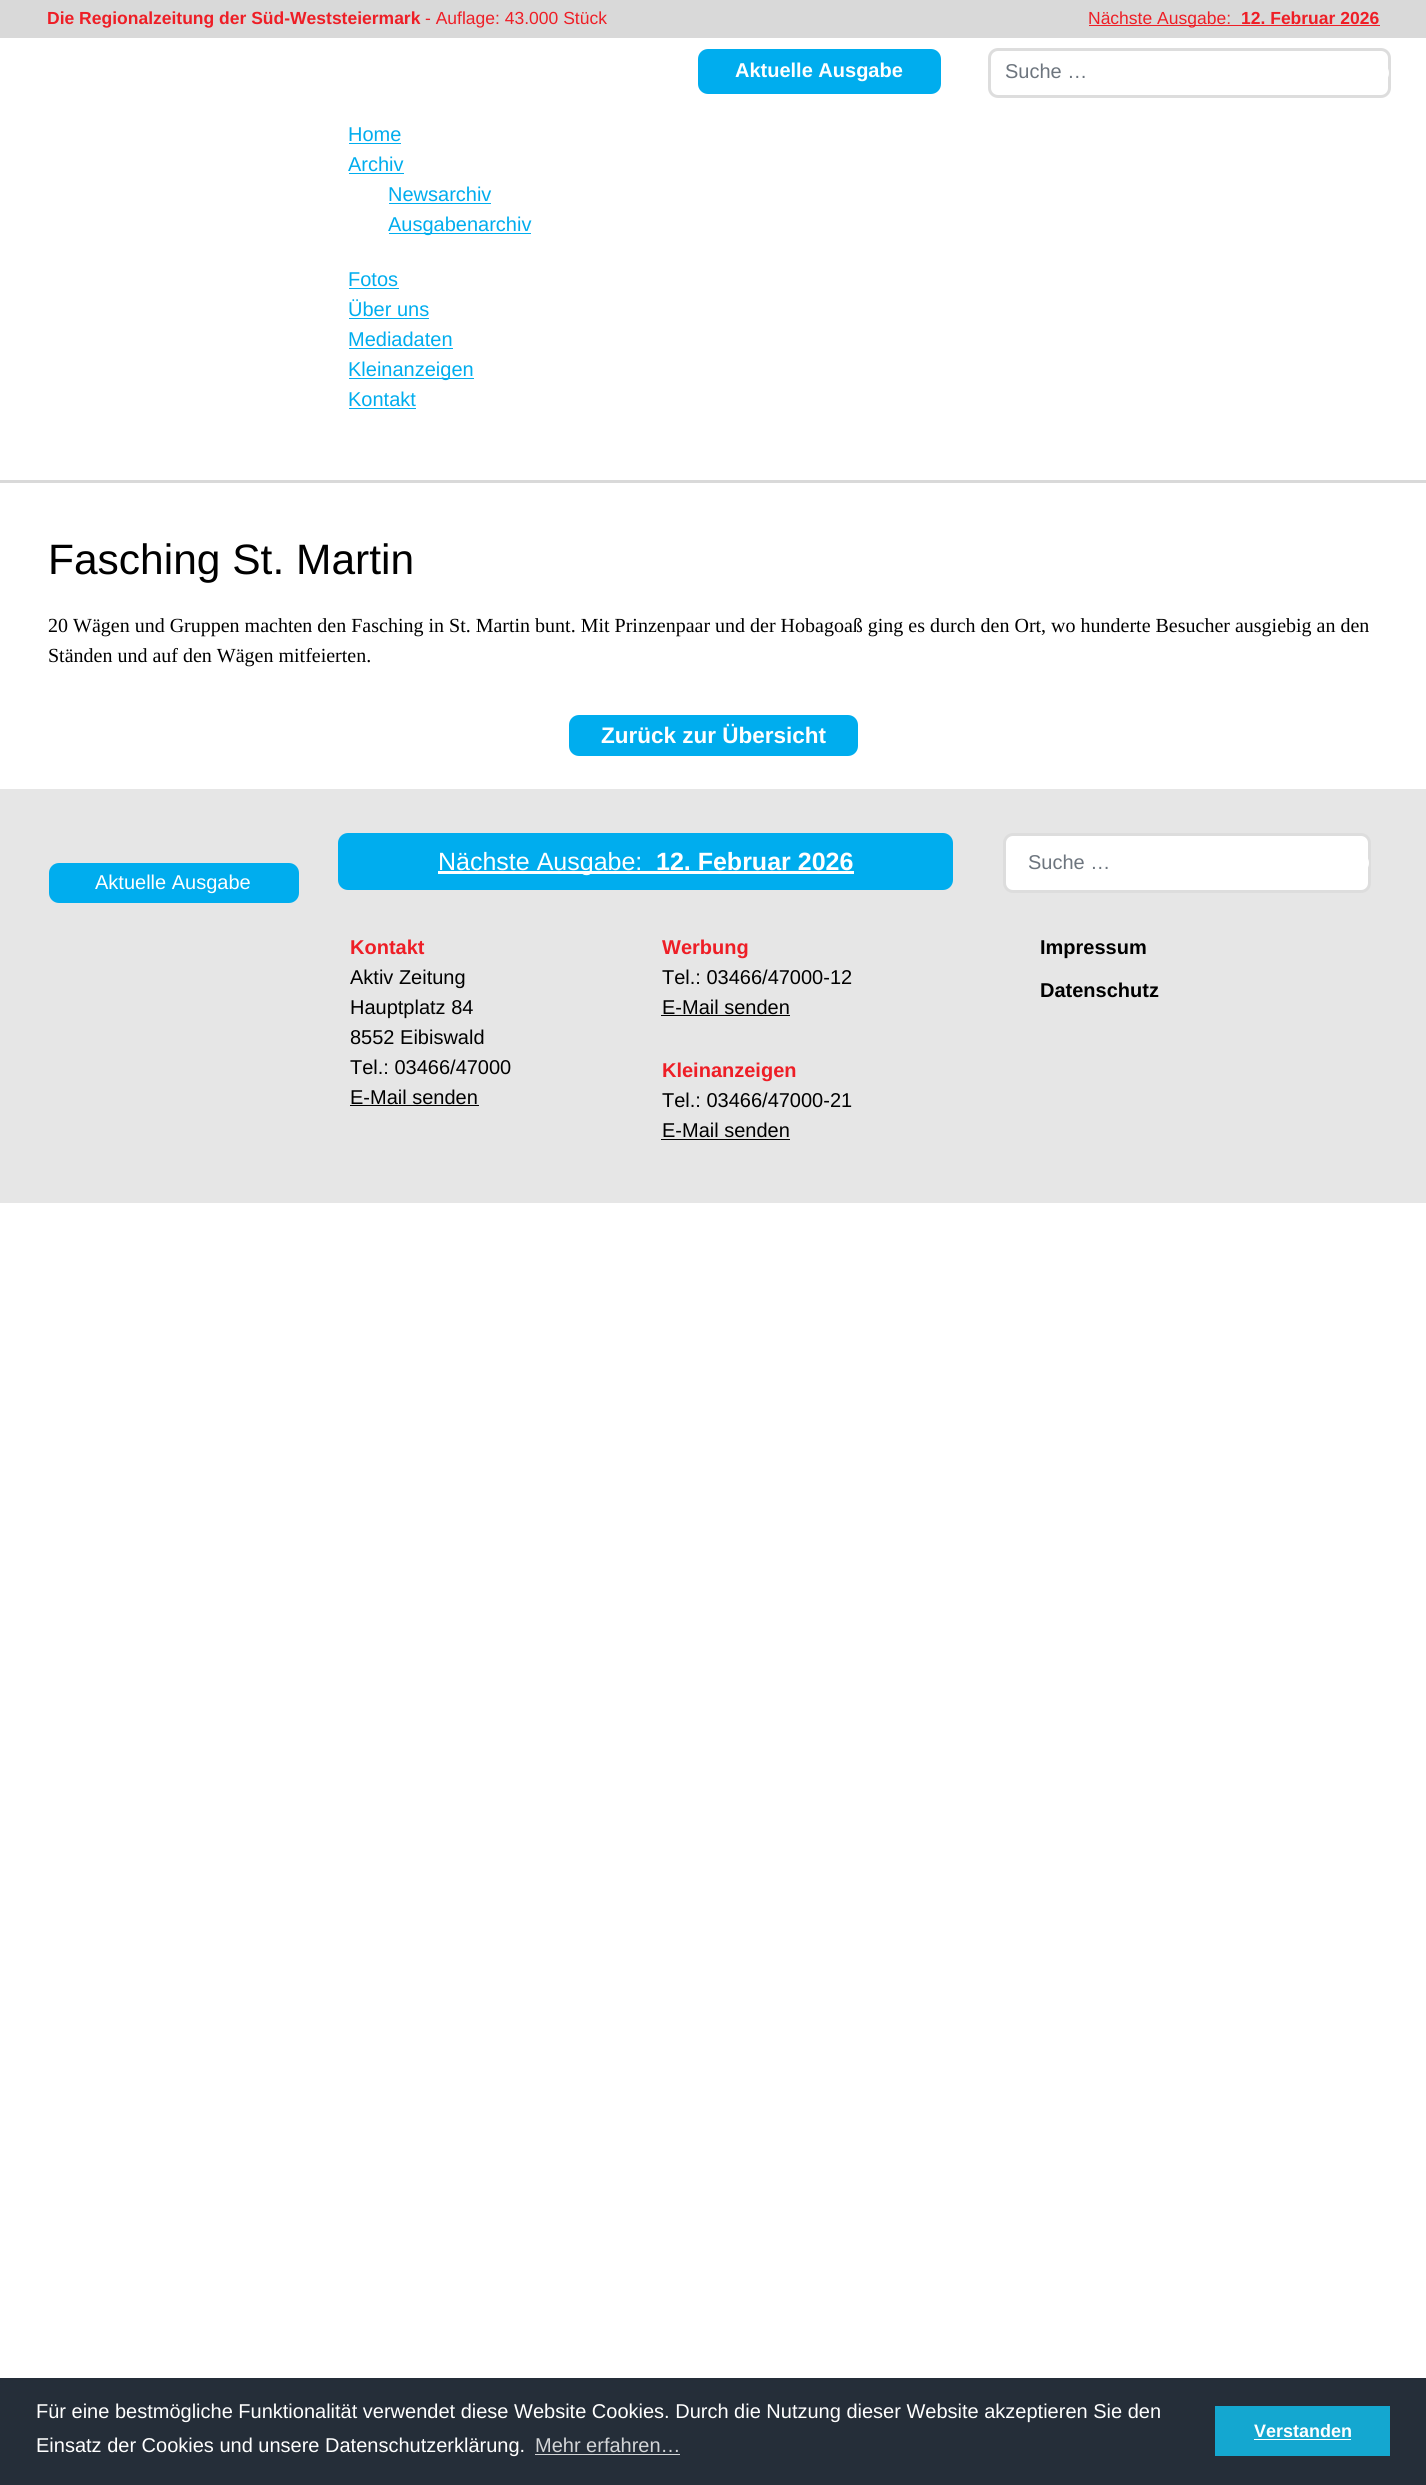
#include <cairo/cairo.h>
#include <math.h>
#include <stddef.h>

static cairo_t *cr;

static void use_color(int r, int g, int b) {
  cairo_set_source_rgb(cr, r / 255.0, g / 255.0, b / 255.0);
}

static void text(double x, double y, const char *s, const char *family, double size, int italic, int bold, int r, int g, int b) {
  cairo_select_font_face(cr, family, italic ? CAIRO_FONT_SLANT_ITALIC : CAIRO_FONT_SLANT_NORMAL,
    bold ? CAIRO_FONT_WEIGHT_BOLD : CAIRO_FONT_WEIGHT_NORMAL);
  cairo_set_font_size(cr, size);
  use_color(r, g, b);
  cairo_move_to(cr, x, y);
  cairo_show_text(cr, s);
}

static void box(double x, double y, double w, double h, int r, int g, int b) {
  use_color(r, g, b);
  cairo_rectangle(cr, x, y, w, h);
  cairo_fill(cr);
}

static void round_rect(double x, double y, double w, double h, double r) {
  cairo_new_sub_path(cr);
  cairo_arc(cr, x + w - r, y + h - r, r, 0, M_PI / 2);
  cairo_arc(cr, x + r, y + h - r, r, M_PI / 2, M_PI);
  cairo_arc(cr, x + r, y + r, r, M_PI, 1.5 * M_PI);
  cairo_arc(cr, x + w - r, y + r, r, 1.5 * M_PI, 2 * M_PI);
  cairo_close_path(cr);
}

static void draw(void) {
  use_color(255, 255, 255);
  cairo_paint(cr);
  box(0, 480, 1426, 3, 217, 217, 217);
  box(0, 0, 1426, 38, 217, 217, 217);
  box(1089, 25, 291, 1, 238, 30, 38);
  use_color(0, 173, 238);
  round_rect(698, 49, 243, 45, 10);
  cairo_fill(cr);
  round_rect(989.5, 49.5, 400, 47, 8.5);
  use_color(221, 221, 221);
  cairo_set_line_width(cr, 3);
  cairo_stroke(cr);
  use_color(255, 255, 255);
  cairo_new_path(cr);
  cairo_move_to(cr, 1364, 63);
  cairo_line_to(cr, 1379, 63);
  cairo_curve_to(cr, 1384.5, 63, 1389, 67.5, 1389, 73);
  cairo_curve_to(cr, 1389, 78.5, 1384.5, 83, 1379, 83);
  cairo_line_to(cr, 1364, 83);
  cairo_close_path(cr);
  cairo_fill(cr);
  box(349, 143, 52, 1, 0, 173, 238);
  box(349, 173, 55, 1, 0, 173, 238);
  box(389, 203, 102, 1, 0, 173, 238);
  box(389, 233, 142, 1, 0, 173, 238);
  box(349, 288, 50, 1, 0, 173, 238);
  box(349, 318, 80, 1, 0, 173, 238);
  box(349, 348, 104, 1, 0, 173, 238);
  box(349, 378, 125, 1, 0, 173, 238);
  box(349, 408, 67, 1, 0, 173, 238);
  round_rect(569, 715, 289, 41, 10);
  cairo_fill(cr);
  box(0, 789, 1426, 414, 230, 230, 230);
  use_color(0, 173, 238);
  round_rect(338, 833, 615, 57, 10);
  cairo_fill(cr);
  box(438, 871, 416, 3, 255, 255, 255);
  round_rect(1004.5, 834.5, 365, 57, 8.5);
  cairo_fill_preserve(cr);
  use_color(221, 221, 221);
  cairo_stroke(cr);
  use_color(255, 255, 255);
  cairo_new_path(cr);
  cairo_move_to(cr, 1314, 853);
  cairo_line_to(cr, 1359, 853);
  cairo_curve_to(cr, 1364.5, 853, 1369, 857.5, 1369, 863);
  cairo_curve_to(cr, 1369, 868.5, 1364.5, 873, 1359, 873);
  cairo_line_to(cr, 1314, 873);
  cairo_close_path(cr);
  cairo_fill(cr);
  use_color(0, 173, 238);
  round_rect(49, 863, 250, 40, 10);
  cairo_fill(cr);
  box(350, 1105, 129, 1, 0, 0, 0);
  box(661, 1015, 129, 1, 0, 0, 0);
  box(661, 1139, 129, 1, 0, 0, 0);
  box(0, 2378, 1426, 107, 37, 46, 57);
  box(535, 2454, 145, 1, 211, 213, 215);
  box(1215, 2406, 175, 50, 20, 167, 208);
  box(1254, 2439, 97, 1, 255, 255, 255);
  text(47, 24, "Die Regionalzeitung der Süd-Weststeiermark", "Liberation Sans", 17.5, 0, 1, 238, 30, 38);
  text(425, 24, "- Auflage: 43.000 Stück", "Liberation Sans", 17.5, 0, 0, 238, 30, 38);
  text(1088, 24, "Nächste Ausgabe:", "Liberation Sans", 17.5, 0, 0, 238, 30, 38);
  text(1241, 24, "12. Februar 2026", "Liberation Sans", 17.5, 0, 1, 238, 30, 38);
  text(735, 77, "Aktuelle Ausgabe", "Liberation Sans", 20, 0, 1, 255, 255, 255);
  text(1005, 78, "Suche …", "Liberation Sans", 20, 0, 0, 109, 117, 126);
  text(348, 141, "Home", "Liberation Sans", 20, 0, 0, 0, 173, 238);
  text(348, 171, "Archiv", "Liberation Sans", 20, 0, 0, 0, 173, 238);
  text(388, 201, "Newsarchiv", "Liberation Sans", 20, 0, 0, 0, 173, 238);
  text(388, 231, "Ausgabenarchiv", "Liberation Sans", 20, 0, 0, 0, 173, 238);
  text(348, 286, "Fotos", "Liberation Sans", 20, 0, 0, 0, 173, 238);
  text(348, 316, "Über uns", "Liberation Sans", 20, 0, 0, 0, 173, 238);
  text(348, 346, "Mediadaten", "Liberation Sans", 20, 0, 0, 0, 173, 238);
  text(348, 376, "Kleinanzeigen", "Liberation Sans", 20, 0, 0, 0, 173, 238);
  text(348, 406, "Kontakt", "Liberation Sans", 20, 0, 0, 0, 173, 238);
  text(48, 574, "Fasching St. Martin", "Liberation Sans", 42.5, 0, 0, 0, 0, 0);
  text(48, 632, "20 Wägen und Gruppen machten den Fasching in St. Martin bunt. Mit Prinzenpaar und der Hobagoaß ging es durch den Ort, wo hunderte Besucher ausgiebig an den", "Liberation Serif", 20, 0, 0, 0, 0, 0);
  text(48, 662, "Ständen und auf den Wägen mitfeierten.", "Liberation Serif", 20, 0, 0, 0, 0, 0);
  text(601, 743, "Zurück zur Übersicht", "Liberation Sans", 22.5, 0, 1, 255, 255, 255);
  text(438, 870, "Nächste Ausgabe:", "Liberation Sans", 25, 0, 0, 255, 255, 255);
  text(656, 870, "12. Februar 2026", "Liberation Sans", 25, 0, 1, 255, 255, 255);
  text(1028, 869, "Suche …", "Liberation Sans", 20, 0, 0, 109, 117, 126);
  text(95, 889, "Aktuelle Ausgabe", "Liberation Sans", 20, 0, 0, 255, 255, 255);
  text(350, 954, "Kontakt", "Liberation Sans", 20, 0, 1, 238, 30, 38);
  text(350, 984, "Aktiv Zeitung", "Liberation Sans", 20, 0, 0, 0, 0, 0);
  text(350, 1014, "Hauptplatz 84", "Liberation Sans", 20, 0, 0, 0, 0, 0);
  text(350, 1044, "8552 Eibiswald", "Liberation Sans", 20, 0, 0, 0, 0, 0);
  text(350, 1074, "Tel.: 03466/47000", "Liberation Sans", 20, 0, 0, 0, 0, 0);
  text(350, 1104, "E-Mail senden", "Liberation Sans", 20, 0, 0, 0, 0, 0);
  text(662, 954, "Werbung", "Liberation Sans", 20, 0, 1, 238, 30, 38);
  text(662, 984, "Tel.: 03466/47000-12", "Liberation Sans", 20, 0, 0, 0, 0, 0);
  text(662, 1014, "E-Mail senden", "Liberation Sans", 20, 0, 0, 0, 0, 0);
  text(662, 1077, "Kleinanzeigen", "Liberation Sans", 20, 0, 1, 238, 30, 38);
  text(662, 1107, "Tel.: 03466/47000-21", "Liberation Sans", 20, 0, 0, 0, 0, 0);
  text(662, 1137, "E-Mail senden", "Liberation Sans", 20, 0, 0, 0, 0, 0);
  text(1040, 954, "Impressum", "Liberation Sans", 20, 0, 1, 0, 0, 0);
  text(1040, 997, "Datenschutz", "Liberation Sans", 20, 0, 1, 0, 0, 0);
  text(36, 2418, "Für eine bestmögliche Funktionalität verwendet diese Website Cookies. Durch die Nutzung dieser Website akzeptieren Sie den", "Liberation Sans", 20, 0, 0, 255, 255, 255);
  text(36, 2452, "Einsatz der Cookies und unsere Datenschutzerklärung.", "Liberation Sans", 20, 0, 0, 255, 255, 255);
  text(535, 2452, "Mehr erfahren…", "Liberation Sans", 20, 0, 0, 211, 213, 215);
  text(1254, 2437, "Verstanden", "Liberation Sans", 18, 0, 1, 255, 255, 255);
}

int main(void) {
  cairo_surface_t *surface = cairo_image_surface_create(CAIRO_FORMAT_RGB24, 1426, 2485);
  cr = cairo_create(surface);
  cairo_font_options_t *options = cairo_font_options_create();
  cairo_font_options_set_hint_metrics(options, CAIRO_HINT_METRICS_OFF);
  cairo_font_options_set_hint_style(options, CAIRO_HINT_STYLE_NONE);
  cairo_set_font_options(cr, options);
  cairo_set_miter_limit(cr, 4);
  draw();
  cairo_surface_write_to_png(surface, "out.png");
  cairo_font_options_destroy(options);
  cairo_destroy(cr);
  cairo_surface_destroy(surface);
  return 0;
}
